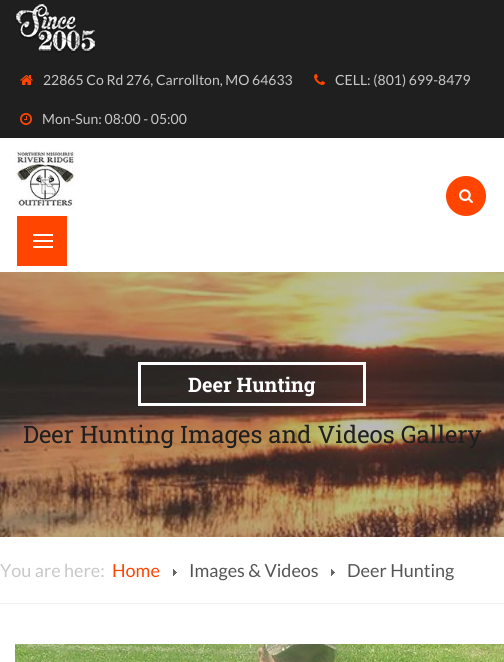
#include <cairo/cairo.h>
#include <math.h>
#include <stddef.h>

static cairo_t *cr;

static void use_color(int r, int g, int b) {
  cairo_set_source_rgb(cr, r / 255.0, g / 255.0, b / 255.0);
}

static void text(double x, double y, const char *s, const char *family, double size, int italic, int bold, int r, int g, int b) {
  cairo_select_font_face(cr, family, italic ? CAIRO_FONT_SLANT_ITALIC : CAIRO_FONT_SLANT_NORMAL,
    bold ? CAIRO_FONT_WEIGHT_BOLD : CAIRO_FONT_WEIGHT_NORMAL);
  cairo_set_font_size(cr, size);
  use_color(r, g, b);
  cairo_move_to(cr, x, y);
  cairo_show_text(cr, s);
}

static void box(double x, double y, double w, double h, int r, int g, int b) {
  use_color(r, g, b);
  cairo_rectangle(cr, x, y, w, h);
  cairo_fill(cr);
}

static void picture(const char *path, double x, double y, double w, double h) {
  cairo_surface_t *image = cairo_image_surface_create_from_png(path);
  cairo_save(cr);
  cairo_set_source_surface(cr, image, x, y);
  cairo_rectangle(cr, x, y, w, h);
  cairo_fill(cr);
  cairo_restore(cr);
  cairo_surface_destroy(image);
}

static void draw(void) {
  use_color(255, 255, 255);
  cairo_paint(cr);
  box(0, 0, 504, 138, 31, 31, 31);
  picture("img_01.png", 15, 4, 80, 49);
  picture("img_02.png", 20, 75, 13, 10);
  picture("img_03.png", 314, 74, 11, 11);
  picture("img_04.png", 20, 113, 12, 12);
  picture("img_05.png", 15, 150, 60, 60);
  use_color(255, 69, 0);
  cairo_arc(cr, 466, 196, 20, 0, 2 * M_PI);
  cairo_fill(cr);
  picture("img_06.png", 459, 189, 14, 15);
  box(17, 216, 50, 50, 255, 69, 0);
  box(33, 234, 20, 2, 255, 255, 255);
  box(33, 240, 20, 2, 255, 255, 255);
  box(33, 246, 20, 2, 255, 255, 255);
  picture("img_07.png", 0, 272, 504, 265);
  cairo_rectangle(cr, 139.5, 363.5, 225, 41);
  cairo_set_line_width(cr, 3);
  cairo_stroke(cr);
  box(0, 603, 504, 1, 240, 240, 240);
  picture("img_08.png", 173, 569, 4, 7);
  picture("img_08.png", 331, 569, 4, 7);
  picture("img_09.png", 15, 644, 489, 18);
  text(43, 85, "22865 Co Rd 276, Carrollton, MO 64633", "Lato", 14, 0, 0, 200, 200, 200);
  text(335, 85, "CELL: (801) 699-8479", "Lato", 14, 0, 0, 200, 200, 200);
  text(42, 124, "Mon-Sun: 08:00 - 05:00", "Lato", 14, 0, 0, 200, 200, 200);
  text(188, 392, "Deer Hunting", "Roboto Slab", 20, 0, 1, 255, 255, 255);
  text(23, 443, "Deer Hunting Images and Videos Gallery", "Roboto Slab", 24, 0, 0, 31, 31, 31);
  text(0, 577, "You are here:", "Lato", 18, 0, 0, 200, 200, 200);
  text(112, 577, "Home", "Lato", 18, 0, 0, 255, 69, 0);
  text(189, 577, "Images & Videos", "Lato", 18, 0, 0, 85, 85, 85);
  text(347, 577, "Deer Hunting", "Lato", 18, 0, 0, 85, 85, 85);
}

int main(void) {
  cairo_surface_t *surface = cairo_image_surface_create(CAIRO_FORMAT_RGB24, 504, 662);
  cr = cairo_create(surface);
  cairo_font_options_t *options = cairo_font_options_create();
  cairo_font_options_set_hint_metrics(options, CAIRO_HINT_METRICS_OFF);
  cairo_font_options_set_hint_style(options, CAIRO_HINT_STYLE_NONE);
  cairo_set_font_options(cr, options);
  cairo_set_miter_limit(cr, 4);
  draw();
  cairo_surface_write_to_png(surface, "out.png");
  cairo_font_options_destroy(options);
  cairo_destroy(cr);
  cairo_surface_destroy(surface);
  return 0;
}
